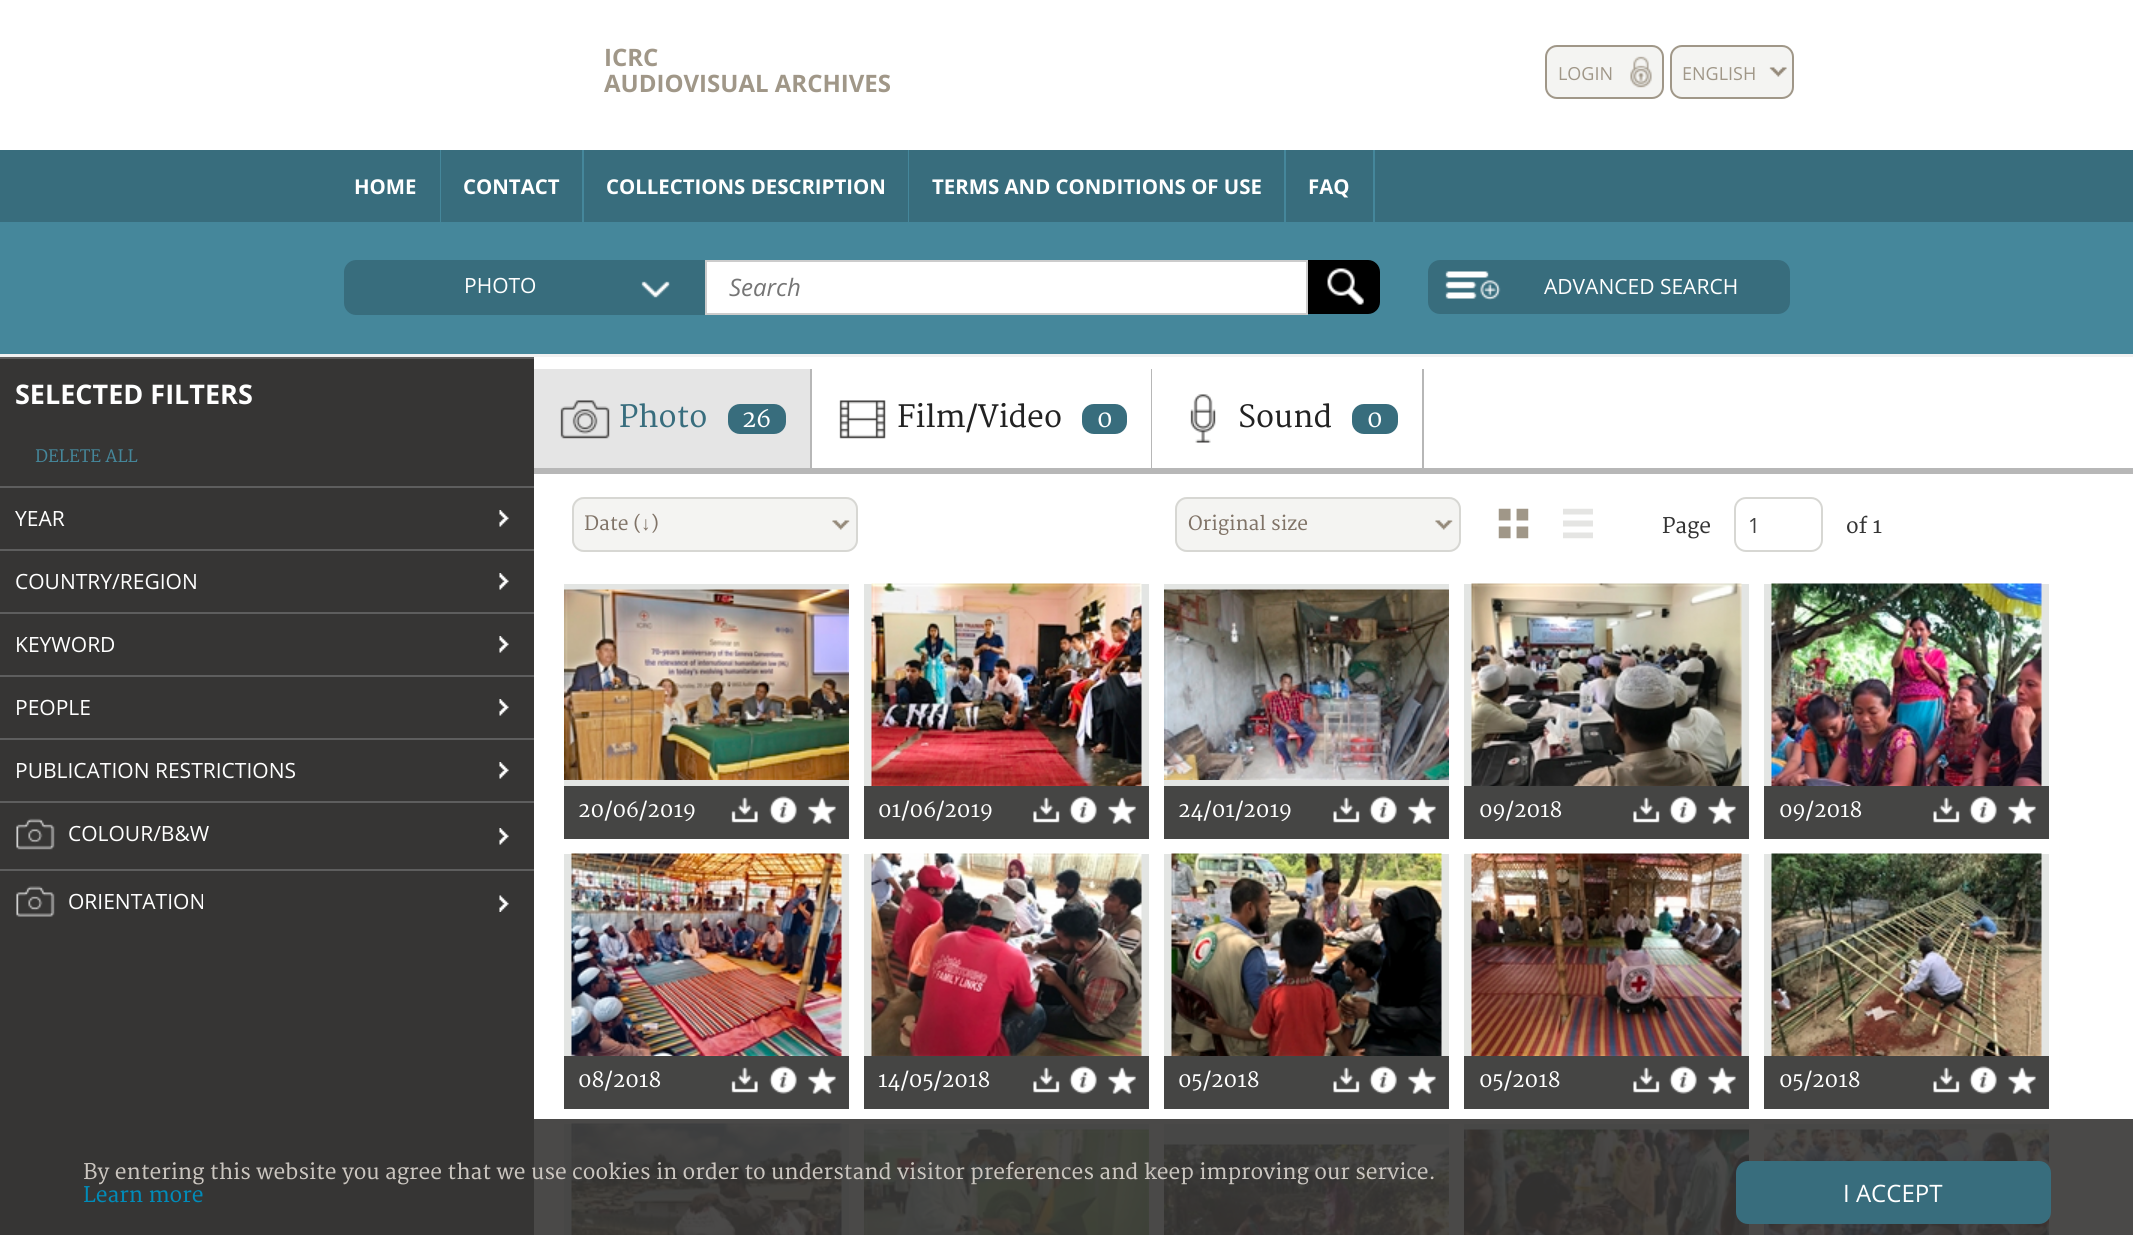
#include <cairo/cairo.h>
#include <math.h>
#include <stddef.h>

static cairo_t *cr;

static void use_color(int r, int g, int b) {
  cairo_set_source_rgb(cr, r / 255.0, g / 255.0, b / 255.0);
}

static void text(double x, double y, const char *s, const char *family, double size, int italic, int bold, int r, int g, int b) {
  cairo_select_font_face(cr, family, italic ? CAIRO_FONT_SLANT_ITALIC : CAIRO_FONT_SLANT_NORMAL,
    bold ? CAIRO_FONT_WEIGHT_BOLD : CAIRO_FONT_WEIGHT_NORMAL);
  cairo_set_font_size(cr, size);
  use_color(r, g, b);
  cairo_move_to(cr, x, y);
  cairo_show_text(cr, s);
}

static void box(double x, double y, double w, double h, int r, int g, int b) {
  use_color(r, g, b);
  cairo_rectangle(cr, x, y, w, h);
  cairo_fill(cr);
}

static void round_rect(double x, double y, double w, double h, double r) {
  cairo_new_sub_path(cr);
  cairo_arc(cr, x + w - r, y + h - r, r, 0, M_PI / 2);
  cairo_arc(cr, x + r, y + h - r, r, M_PI / 2, M_PI);
  cairo_arc(cr, x + r, y + r, r, M_PI, 1.5 * M_PI);
  cairo_arc(cr, x + w - r, y + r, r, 1.5 * M_PI, 2 * M_PI);
  cairo_close_path(cr);
}

static void picture(const char *path, double x, double y, double w, double h) {
  cairo_surface_t *image = cairo_image_surface_create_from_png(path);
  cairo_save(cr);
  cairo_set_source_surface(cr, image, x, y);
  cairo_rectangle(cr, x, y, w, h);
  cairo_fill(cr);
  cairo_restore(cr);
  cairo_surface_destroy(image);
}

static void draw(void) {
  use_color(255, 255, 255);
  cairo_paint(cr);
  box(534, 1119, 1599, 116, 74, 73, 72);
  use_color(244, 244, 242);
  round_rect(1545, 45, 119, 54, 12);
  cairo_fill(cr);
  picture("img_01.png", 1630, 56, 22, 32);
  round_rect(1546, 46, 117, 52, 11);
  use_color(160, 151, 136);
  cairo_stroke(cr);
  use_color(244, 244, 242);
  round_rect(1670, 45, 124, 54, 12);
  cairo_fill(cr);
  picture("img_02.png", 1769, 67, 18, 10);
  round_rect(1671, 46, 122, 52, 11);
  use_color(160, 151, 136);
  cairo_stroke(cr);
  box(0, 150, 2133, 72, 56, 109, 125);
  box(440, 150, 1, 72, 69, 135, 155);
  box(582, 150, 2, 72, 69, 135, 155);
  box(908, 150, 1, 72, 69, 135, 155);
  box(1284, 150, 2, 72, 69, 135, 155);
  box(1373, 150, 2, 72, 69, 135, 155);
  box(0, 222, 2133, 132, 69, 135, 155);
  box(0, 354, 2133, 3, 241, 241, 241);
  use_color(56, 109, 125);
  cairo_new_path(cr);
  cairo_move_to(cr, 356, 260);
  cairo_line_to(cr, 705, 260);
  cairo_line_to(cr, 705, 315);
  cairo_line_to(cr, 356, 315);
  cairo_curve_to(cr, 349.5, 315, 344, 309.5, 344, 303);
  cairo_line_to(cr, 344, 272);
  cairo_curve_to(cr, 344, 265.5, 349.5, 260, 356, 260);
  cairo_close_path(cr);
  cairo_fill(cr);
  picture("img_03.png", 641, 281, 29, 17);
  use_color(255, 255, 255);
  cairo_rectangle(cr, 706, 261, 601, 53);
  cairo_fill_preserve(cr);
  use_color(204, 204, 204);
  cairo_stroke(cr);
  use_color(0, 0, 0);
  cairo_new_path(cr);
  cairo_move_to(cr, 1308, 260);
  cairo_line_to(cr, 1368, 260);
  cairo_curve_to(cr, 1374.5, 260, 1380, 265.5, 1380, 272);
  cairo_line_to(cr, 1380, 302);
  cairo_curve_to(cr, 1380, 308.5, 1374.5, 314, 1368, 314);
  cairo_line_to(cr, 1308, 314);
  cairo_close_path(cr);
  cairo_fill(cr);
  picture("img_04.png", 1327, 268, 37, 37);
  use_color(56, 109, 125);
  round_rect(1428, 260, 362, 54, 12);
  cairo_fill(cr);
  picture("img_05.png", 1445, 271, 56, 29);
  box(0, 871, 534, 364, 54, 53, 52);
  box(0, 359, 534, 127, 54, 53, 52);
  box(0, 357, 534, 2, 94, 94, 94);
  box(0, 488, 534, 61, 54, 53, 52);
  picture("img_06.png", 499, 510, 10, 17);
  box(0, 486, 534, 2, 94, 94, 94);
  box(0, 551, 534, 61, 54, 53, 52);
  picture("img_06.png", 499, 573, 10, 17);
  box(0, 549, 534, 2, 94, 94, 94);
  box(0, 614, 534, 61, 54, 53, 52);
  picture("img_06.png", 499, 636, 10, 17);
  box(0, 612, 534, 2, 94, 94, 94);
  box(0, 677, 534, 61, 54, 53, 52);
  picture("img_06.png", 499, 699, 10, 17);
  box(0, 675, 534, 2, 94, 94, 94);
  box(0, 740, 534, 61, 54, 53, 52);
  picture("img_06.png", 499, 762, 10, 17);
  box(0, 738, 534, 2, 94, 94, 94);
  box(0, 803, 534, 66, 54, 53, 52);
  picture("img_06.png", 499, 828, 10, 17);
  box(0, 801, 534, 2, 94, 94, 94);
  picture("img_07.png", 16, 818, 39, 32);
  picture("img_08.png", 499, 895, 10, 17);
  box(0, 869, 534, 2, 94, 94, 94);
  picture("img_09.png", 16, 886, 39, 31);
  box(534, 468, 1599, 6, 183, 183, 183);
  box(810, 369, 2, 99, 183, 183, 183);
  box(534, 369, 276, 99, 229, 229, 229);
  picture("img_10.png", 560, 400, 50, 39);
  use_color(56, 109, 125);
  round_rect(728, 404, 58, 30, 12);
  cairo_fill(cr);
  box(1151, 369, 1, 99, 183, 183, 183);
  picture("img_11.png", 839, 400, 47, 39);
  use_color(56, 109, 125);
  round_rect(1082, 404, 45, 30, 12);
  cairo_fill(cr);
  box(1422, 369, 2, 99, 183, 183, 183);
  picture("img_12.png", 1190, 394, 26, 49);
  use_color(56, 109, 125);
  round_rect(1352, 404, 46, 30, 12);
  cairo_fill(cr);
  use_color(244, 244, 242);
  round_rect(572, 497, 286, 55, 12);
  cairo_fill(cr);
  picture("img_13.png", 832, 520, 18, 10);
  round_rect(573, 498, 284, 53, 11);
  use_color(215, 215, 211);
  cairo_stroke(cr);
  use_color(244, 244, 242);
  round_rect(1175, 497, 286, 55, 12);
  cairo_fill(cr);
  picture("img_13.png", 1435, 520, 18, 10);
  round_rect(1176, 498, 284, 53, 11);
  use_color(215, 215, 211);
  cairo_stroke(cr);
  picture("img_14.png", 1498, 508, 31, 31);
  picture("img_15.png", 1563, 508, 30, 31);
  round_rect(1735, 498, 87, 53, 11);
  cairo_stroke(cr);
  box(564, 584, 285, 202, 227, 229, 227);
  picture("img_16.png", 564, 589, 285, 191);
  box(564, 786, 285, 53, 69, 69, 68);
  picture("img_17.png", 731, 797, 27, 26);
  picture("img_18.png", 769, 796, 28, 28);
  picture("img_19.png", 808, 797, 28, 27);
  box(864, 584, 285, 202, 227, 229, 227);
  picture("img_20.png", 871, 583, 271, 203);
  box(864, 786, 285, 53, 69, 69, 68);
  picture("img_21.png", 1033, 797, 27, 26);
  picture("img_18.png", 1069, 796, 28, 28);
  picture("img_22.png", 1108, 797, 28, 27);
  box(1164, 584, 285, 202, 227, 229, 227);
  picture("img_23.png", 1164, 589, 285, 191);
  box(1164, 786, 285, 53, 69, 69, 68);
  picture("img_24.png", 1333, 797, 27, 26);
  picture("img_25.png", 1369, 796, 28, 28);
  picture("img_19.png", 1408, 797, 28, 27);
  box(1464, 584, 285, 202, 227, 229, 227);
  picture("img_26.png", 1471, 583, 271, 203);
  box(1464, 786, 285, 53, 69, 69, 68);
  picture("img_21.png", 1633, 797, 27, 26);
  picture("img_18.png", 1669, 796, 28, 28);
  picture("img_19.png", 1708, 797, 28, 27);
  box(1764, 584, 285, 202, 227, 229, 227);
  picture("img_27.png", 1771, 583, 271, 203);
  box(1764, 786, 285, 53, 69, 69, 68);
  picture("img_24.png", 1933, 797, 27, 26);
  picture("img_18.png", 1969, 796, 28, 28);
  picture("img_28.png", 2008, 797, 28, 27);
  box(564, 854, 285, 202, 227, 229, 227);
  picture("img_29.png", 571, 853, 271, 203);
  box(564, 1056, 285, 53, 69, 69, 68);
  picture("img_17.png", 731, 1067, 27, 26);
  picture("img_18.png", 769, 1066, 28, 28);
  picture("img_19.png", 808, 1067, 28, 27);
  box(864, 854, 285, 202, 227, 229, 227);
  picture("img_30.png", 871, 853, 271, 203);
  box(864, 1056, 285, 53, 69, 69, 68);
  picture("img_21.png", 1033, 1067, 27, 26);
  picture("img_18.png", 1069, 1066, 28, 28);
  picture("img_22.png", 1108, 1067, 28, 27);
  box(1164, 854, 285, 202, 227, 229, 227);
  picture("img_31.png", 1171, 853, 271, 203);
  box(1164, 1056, 285, 53, 69, 69, 68);
  picture("img_24.png", 1333, 1067, 27, 26);
  picture("img_25.png", 1369, 1066, 28, 28);
  picture("img_19.png", 1408, 1067, 28, 27);
  box(1464, 854, 285, 202, 227, 229, 227);
  picture("img_32.png", 1471, 853, 271, 203);
  box(1464, 1056, 285, 53, 69, 69, 68);
  picture("img_21.png", 1633, 1067, 27, 26);
  picture("img_18.png", 1669, 1066, 28, 28);
  picture("img_19.png", 1708, 1067, 28, 27);
  box(1764, 854, 285, 202, 227, 229, 227);
  picture("img_33.png", 1771, 853, 271, 203);
  box(1764, 1056, 285, 53, 69, 69, 68);
  picture("img_24.png", 1933, 1067, 27, 26);
  picture("img_18.png", 1969, 1066, 28, 28);
  picture("img_28.png", 2008, 1067, 28, 27);
  box(564, 1124, 285, 111, 71, 71, 70);
  picture("img_34.png", 571, 1123, 271, 112);
  box(864, 1124, 285, 6, 71, 71, 70);
  picture("img_35.png", 864, 1129, 285, 106);
  box(1164, 1124, 285, 21, 71, 71, 70);
  picture("img_36.png", 1164, 1144, 285, 91);
  box(1464, 1124, 285, 6, 71, 71, 70);
  picture("img_37.png", 1464, 1129, 285, 106);
  box(1764, 1124, 285, 6, 71, 71, 70);
  picture("img_38.png", 1764, 1129, 285, 106);
  use_color(56, 109, 125);
  round_rect(1736, 1161, 315, 63, 12);
  cairo_fill(cr);
  text(604, 66, "ICRC", "Open Sans", 24, 0, 1, 160, 151, 136);
  text(604, 92, "AUDIOVISUAL ARCHIVES", "Open Sans", 24, 0, 1, 160, 151, 136);
  text(1558, 80, "LOGIN", "Open Sans", 18, 0, 0, 160, 151, 136);
  text(1682, 80, "ENGLISH", "Open Sans", 18, 0, 0, 160, 151, 136);
  text(354, 194, "HOME", "Open Sans", 20.4, 0, 1, 255, 255, 255);
  text(463, 194, "CONTACT", "Open Sans", 20.4, 0, 1, 255, 255, 255);
  text(606, 194, "COLLECTIONS DESCRIPTION", "Open Sans", 20.4, 0, 1, 255, 255, 255);
  text(932, 194, "TERMS AND CONDITIONS OF USE", "Open Sans", 20.4, 0, 1, 255, 255, 255);
  text(1308, 194, "FAQ", "Open Sans", 20.4, 0, 1, 255, 255, 255);
  text(464, 293, "PHOTO", "Open Sans", 21, 0, 0, 255, 255, 255);
  text(729, 296, "Search", "Open Sans", 24, 1, 0, 117, 117, 117);
  text(1544, 294, "ADVANCED SEARCH", "Open Sans", 21, 0, 0, 255, 255, 255);
  text(15, 404, "SELECTED FILTERS", "Open Sans", 27, 0, 1, 255, 255, 255);
  text(35, 462, "DELETE ALL", "Merriweather", 16.75, 0, 0, 69, 135, 155);
  text(15, 526, "YEAR", "Open Sans", 21, 0, 0, 255, 255, 255);
  text(15, 589, "COUNTRY/REGION", "Open Sans", 21, 0, 0, 255, 255, 255);
  text(15, 652, "KEYWORD", "Open Sans", 21, 0, 0, 255, 255, 255);
  text(15, 715, "PEOPLE", "Open Sans", 21, 0, 0, 255, 255, 255);
  text(15, 778, "PUBLICATION RESTRICTIONS", "Open Sans", 21, 0, 0, 255, 255, 255);
  text(68, 841, "COLOUR/B&W", "Open Sans", 21, 0, 0, 255, 255, 255);
  text(68, 909, "ORIENTATION", "Open Sans", 21, 0, 0, 255, 255, 255);
  text(619, 427, "Photo", "Merriweather", 30, 0, 0, 56, 109, 125);
  text(742, 427, "26", "Merriweather", 24, 0, 0, 255, 255, 255);
  text(897, 427, "Film/Video", "Merriweather", 30, 0, 0, 34, 34, 34);
  text(1097, 427, "0", "Merriweather", 24, 0, 0, 255, 255, 255);
  text(1238, 427, "Sound", "Merriweather", 30, 0, 0, 34, 34, 34);
  text(1367, 427, "0", "Merriweather", 24, 0, 0, 255, 255, 255);
  text(584, 530, "Date (", "Merriweather", 19.25, 0, 0, 128, 115, 103);
  text(641, 530, "↓", "Liberation Serif", 19.25, 0, 0, 128, 115, 103);
  text(651, 530, ")", "Merriweather", 19.25, 0, 0, 128, 115, 103);
  text(1188, 530, "Original size", "Merriweather", 19.25, 0, 0, 128, 115, 103);
  text(1662, 533, "Page", "Merriweather", 21, 0, 0, 51, 51, 51);
  text(1748, 533, "1", "Open Sans", 21, 0, 0, 64, 64, 64);
  text(1846, 533, "of 1", "Merriweather", 21, 0, 0, 51, 51, 51);
  text(578, 817, "20/06/2019", "Merriweather", 21, 0, 0, 255, 255, 255);
  text(878, 817, "01/06/2019", "Merriweather", 21, 0, 0, 255, 255, 255);
  text(1178, 817, "24/01/2019", "Merriweather", 21, 0, 0, 255, 255, 255);
  text(1479, 817, "09/2018", "Merriweather", 21, 0, 0, 255, 255, 255);
  text(1779, 817, "09/2018", "Merriweather", 21, 0, 0, 255, 255, 255);
  text(578, 1087, "08/2018", "Merriweather", 21, 0, 0, 255, 255, 255);
  text(878, 1087, "14/05/2018", "Merriweather", 21, 0, 0, 255, 255, 255);
  text(1178, 1087, "05/2018", "Merriweather", 21, 0, 0, 255, 255, 255);
  text(1479, 1087, "05/2018", "Merriweather", 21, 0, 0, 255, 255, 255);
  text(1779, 1087, "05/2018", "Merriweather", 21, 0, 0, 255, 255, 255);
  text(83, 1179, "By entering this website you agree that we use cookies in order to understand visitor preferences and keep improving our service.", "Merriweather", 21, 0, 0, 203, 198, 192);
  text(83, 1202, "Learn more", "Merriweather", 21, 0, 0, 0, 140, 186);
  text(1843, 1202, "I ACCEPT", "Open Sans", 24, 0, 0, 255, 255, 255);
}

int main(void) {
  cairo_surface_t *surface = cairo_image_surface_create(CAIRO_FORMAT_RGB24, 2133, 1235);
  cr = cairo_create(surface);
  cairo_font_options_t *options = cairo_font_options_create();
  cairo_font_options_set_hint_metrics(options, CAIRO_HINT_METRICS_OFF);
  cairo_font_options_set_hint_style(options, CAIRO_HINT_STYLE_NONE);
  cairo_set_font_options(cr, options);
  cairo_set_miter_limit(cr, 4);
  draw();
  cairo_surface_write_to_png(surface, "out.png");
  cairo_font_options_destroy(options);
  cairo_destroy(cr);
  cairo_surface_destroy(surface);
  return 0;
}
